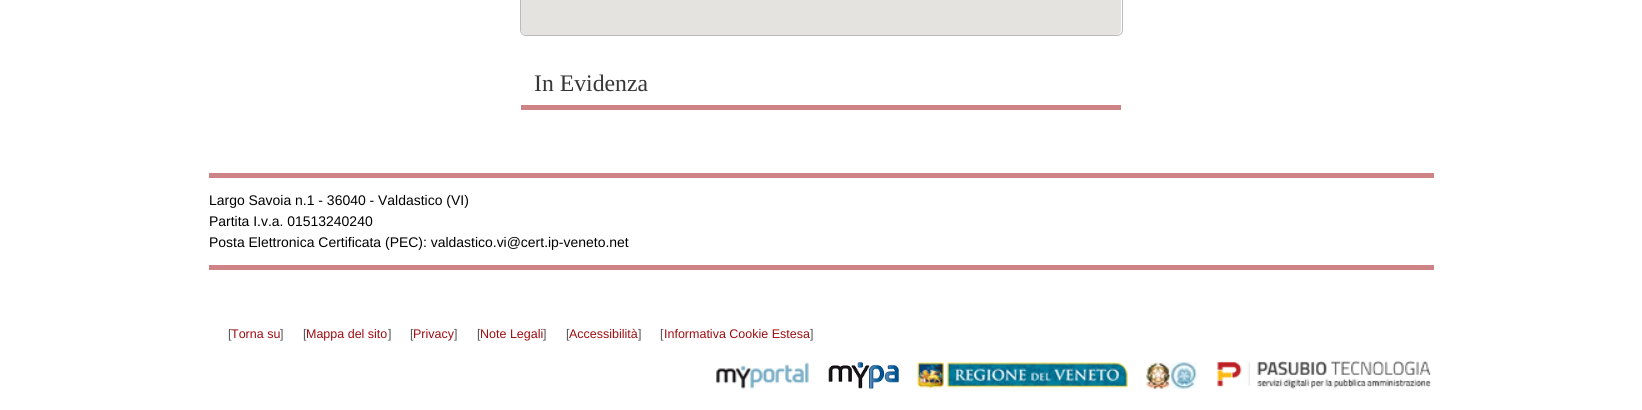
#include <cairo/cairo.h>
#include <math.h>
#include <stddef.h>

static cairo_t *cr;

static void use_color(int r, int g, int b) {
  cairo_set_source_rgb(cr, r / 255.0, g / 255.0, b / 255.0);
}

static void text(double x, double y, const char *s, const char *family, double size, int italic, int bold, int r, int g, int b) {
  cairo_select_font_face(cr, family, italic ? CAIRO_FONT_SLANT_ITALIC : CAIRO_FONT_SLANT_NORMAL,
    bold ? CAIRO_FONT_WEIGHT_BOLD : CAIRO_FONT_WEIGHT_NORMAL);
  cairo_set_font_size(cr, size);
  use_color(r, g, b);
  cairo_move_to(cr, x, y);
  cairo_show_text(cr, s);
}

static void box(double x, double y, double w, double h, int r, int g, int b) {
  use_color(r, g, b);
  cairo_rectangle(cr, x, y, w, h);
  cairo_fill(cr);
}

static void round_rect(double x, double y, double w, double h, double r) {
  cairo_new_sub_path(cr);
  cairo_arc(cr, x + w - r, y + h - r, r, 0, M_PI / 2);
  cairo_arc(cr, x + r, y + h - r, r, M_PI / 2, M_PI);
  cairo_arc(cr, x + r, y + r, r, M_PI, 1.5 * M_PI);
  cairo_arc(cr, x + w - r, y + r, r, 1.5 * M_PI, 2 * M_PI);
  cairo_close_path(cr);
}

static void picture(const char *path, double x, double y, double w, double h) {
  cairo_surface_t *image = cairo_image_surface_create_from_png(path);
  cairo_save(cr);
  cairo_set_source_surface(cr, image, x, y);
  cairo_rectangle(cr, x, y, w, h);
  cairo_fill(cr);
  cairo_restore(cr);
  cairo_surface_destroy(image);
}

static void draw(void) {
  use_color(255, 255, 255);
  cairo_paint(cr);
  round_rect(520.5, -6.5, 602, 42, 5.5);
  use_color(187, 187, 187);
  cairo_set_line_width(cr, 1);
  cairo_stroke(cr);
  use_color(229, 227, 223);
  round_rect(521, -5, 600, 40, 5);
  cairo_fill(cr);
  box(521, 105, 600, 5, 206, 131, 135);
  box(209, 173, 1225, 5, 206, 131, 135);
  box(209, 265, 1225, 5, 206, 131, 135);
  picture("img_01.png", 716, 362, 93, 27);
  picture("img_02.png", 828, 362, 71, 27);
  picture("img_03.png", 917, 362, 211, 27);
  picture("img_04.png", 1146, 362, 24, 27);
  picture("img_05.png", 1170, 362, 27, 27);
  picture("img_06.png", 1217, 360, 214, 29);
  text(534, 91, "In Evidenza", "Liberation Serif", 23.75, 0, 0, 54, 54, 54);
  text(209, 205, "Largo Savoia n.1 - 36040 - Valdastico (VI)", "Liberation Sans", 13.95, 0, 0, 0, 0, 0);
  text(209, 226, "Partita I.v.a. 01513240240", "Liberation Sans", 13.95, 0, 0, 0, 0, 0);
  text(209, 247, "Posta Elettronica Certificata (PEC): valdastico.vi@cert.ip-veneto.net", "Liberation Sans", 13.95, 0, 0, 0, 0, 0);
  text(228, 338, "[", "Liberation Sans", 12.5, 0, 0, 85, 85, 85);
  text(231, 338, "Torna su", "Liberation Sans", 12.5, 0, 0, 158, 12, 15);
  text(280, 338, "]", "Liberation Sans", 12.5, 0, 0, 85, 85, 85);
  text(303, 338, "[", "Liberation Sans", 12.5, 0, 0, 85, 85, 85);
  text(306, 338, "Mappa del sito", "Liberation Sans", 12.5, 0, 0, 158, 12, 15);
  text(388, 338, "]", "Liberation Sans", 12.5, 0, 0, 85, 85, 85);
  text(410, 338, "[", "Liberation Sans", 12.5, 0, 0, 85, 85, 85);
  text(413, 338, "Privacy", "Liberation Sans", 12.5, 0, 0, 158, 12, 15);
  text(454, 338, "]", "Liberation Sans", 12.5, 0, 0, 85, 85, 85);
  text(477, 338, "[", "Liberation Sans", 12.5, 0, 0, 85, 85, 85);
  text(480, 338, "Note Legali", "Liberation Sans", 12.5, 0, 0, 158, 12, 15);
  text(543, 338, "]", "Liberation Sans", 12.5, 0, 0, 85, 85, 85);
  text(566, 338, "[", "Liberation Sans", 12.5, 0, 0, 85, 85, 85);
  text(569, 338, "Accessibilità", "Liberation Sans", 12.5, 0, 0, 158, 12, 15);
  text(638, 338, "]", "Liberation Sans", 12.5, 0, 0, 85, 85, 85);
  text(660, 338, "[", "Liberation Sans", 12.5, 0, 0, 85, 85, 85);
  text(664, 338, "Informativa Cookie Estesa", "Liberation Sans", 12.5, 0, 0, 158, 12, 15);
  text(810, 338, "]", "Liberation Sans", 12.5, 0, 0, 85, 85, 85);
}

int main(void) {
  cairo_surface_t *surface = cairo_image_surface_create(CAIRO_FORMAT_RGB24, 1642, 410);
  cr = cairo_create(surface);
  cairo_font_options_t *options = cairo_font_options_create();
  cairo_font_options_set_hint_metrics(options, CAIRO_HINT_METRICS_OFF);
  cairo_font_options_set_hint_style(options, CAIRO_HINT_STYLE_NONE);
  cairo_set_font_options(cr, options);
  cairo_set_miter_limit(cr, 4);
  draw();
  cairo_surface_write_to_png(surface, "out.png");
  cairo_font_options_destroy(options);
  cairo_destroy(cr);
  cairo_surface_destroy(surface);
  return 0;
}
